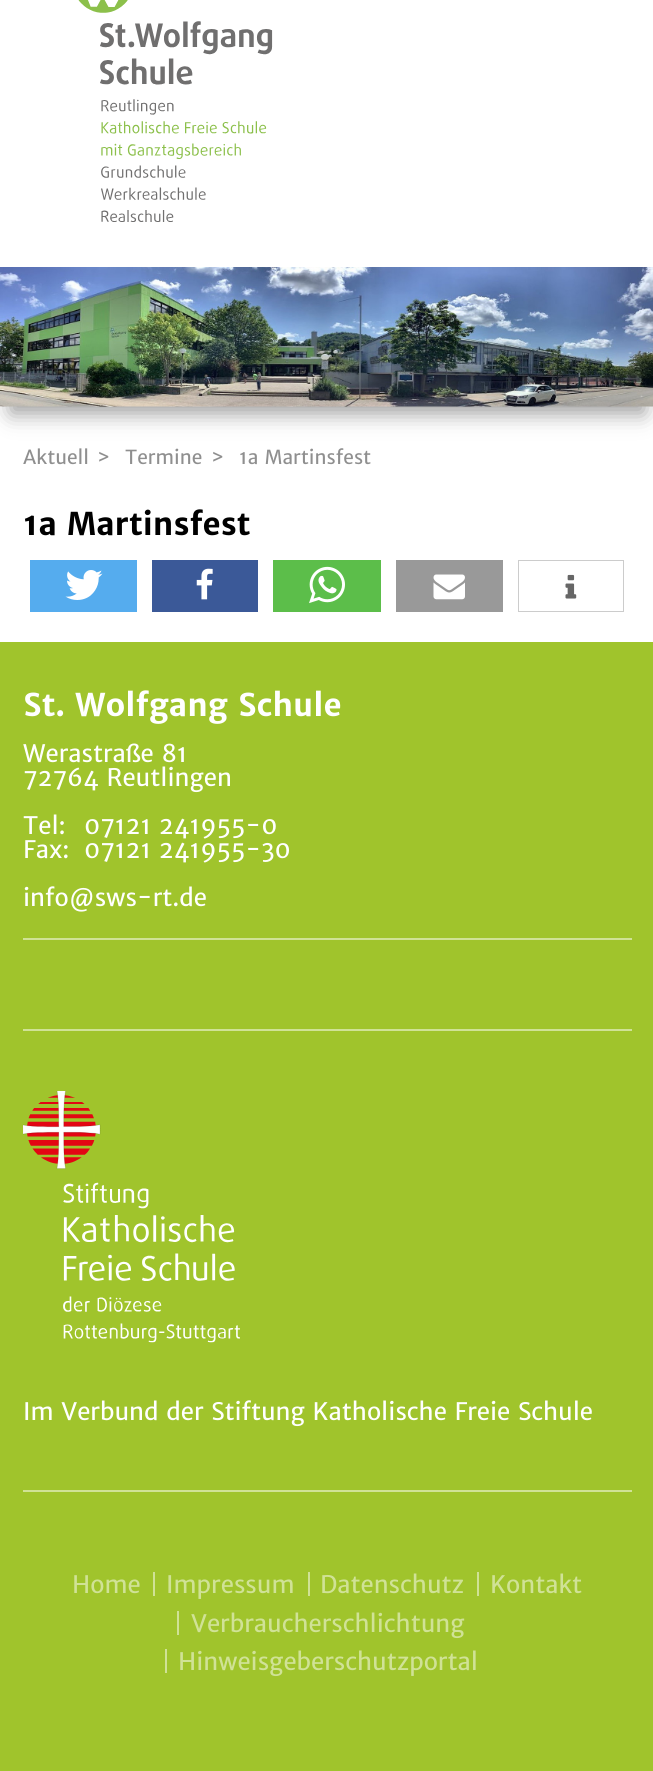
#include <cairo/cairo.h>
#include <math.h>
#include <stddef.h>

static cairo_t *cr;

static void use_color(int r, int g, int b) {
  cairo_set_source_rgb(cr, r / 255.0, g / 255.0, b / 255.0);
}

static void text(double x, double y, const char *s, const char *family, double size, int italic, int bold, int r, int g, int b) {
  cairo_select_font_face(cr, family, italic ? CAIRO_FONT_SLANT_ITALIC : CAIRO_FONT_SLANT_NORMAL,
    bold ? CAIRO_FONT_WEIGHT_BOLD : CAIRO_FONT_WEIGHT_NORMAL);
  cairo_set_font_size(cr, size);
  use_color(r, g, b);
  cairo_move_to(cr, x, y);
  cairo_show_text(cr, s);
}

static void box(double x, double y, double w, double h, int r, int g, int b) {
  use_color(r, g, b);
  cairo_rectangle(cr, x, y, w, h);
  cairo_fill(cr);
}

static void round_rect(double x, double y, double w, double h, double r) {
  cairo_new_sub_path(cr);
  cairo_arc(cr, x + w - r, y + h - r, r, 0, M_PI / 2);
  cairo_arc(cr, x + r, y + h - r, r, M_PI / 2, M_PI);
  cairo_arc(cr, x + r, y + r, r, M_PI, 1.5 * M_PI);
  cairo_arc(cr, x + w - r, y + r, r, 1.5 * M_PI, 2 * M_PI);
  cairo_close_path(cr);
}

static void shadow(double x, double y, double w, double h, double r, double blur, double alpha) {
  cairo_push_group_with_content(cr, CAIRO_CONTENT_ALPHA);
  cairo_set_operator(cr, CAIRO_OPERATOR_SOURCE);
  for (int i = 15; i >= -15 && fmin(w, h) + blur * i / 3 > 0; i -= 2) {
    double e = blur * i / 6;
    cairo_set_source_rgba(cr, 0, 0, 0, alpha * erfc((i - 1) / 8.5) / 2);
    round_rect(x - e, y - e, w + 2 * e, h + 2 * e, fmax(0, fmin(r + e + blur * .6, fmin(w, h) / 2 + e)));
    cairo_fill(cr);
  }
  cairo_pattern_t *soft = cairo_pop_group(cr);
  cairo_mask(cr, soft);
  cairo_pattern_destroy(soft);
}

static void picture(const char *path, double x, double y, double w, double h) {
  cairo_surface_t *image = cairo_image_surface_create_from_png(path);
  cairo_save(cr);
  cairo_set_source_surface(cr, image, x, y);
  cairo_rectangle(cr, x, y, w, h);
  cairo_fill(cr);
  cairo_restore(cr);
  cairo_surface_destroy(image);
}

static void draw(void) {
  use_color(255, 255, 255);
  cairo_paint(cr);
  picture("img_01.png", 78, 0, 195, 222);
  use_color(0, 0, 0);
  shadow(11, 294, 633, 119, 0, 11, 0.4);
  picture("img_02.png", 0, 267, 653, 140);
  box(30, 560, 107, 52, 85, 172, 238);
  picture("img_03.png", 65, 570, 38, 30);
  box(152, 560, 106, 52, 59, 89, 152);
  picture("img_04.png", 196, 568, 17, 32);
  box(273, 560, 108, 52, 92, 190, 74);
  picture("img_05.png", 309, 566, 36, 38);
  box(396, 560, 107, 52, 153, 153, 153);
  picture("img_06.png", 433, 574, 32, 26);
  cairo_rectangle(cr, 519, 561, 104, 50);
  use_color(204, 204, 204);
  cairo_stroke(cr);
  box(519, 561, 104, 50, 255, 255, 255);
  picture("img_07.png", 565, 574, 12, 25);
  box(0, 642, 653, 1129, 160, 196, 44);
  box(23, 938, 609, 2, 208, 226, 150);
  box(23, 1029, 609, 2, 208, 226, 150);
  picture("img_08.png", 23, 1091, 217, 252);
  box(23, 1490, 609, 2, 208, 226, 150);
  box(153, 1572, 2, 24, 208, 226, 150);
  box(308, 1572, 2, 24, 208, 226, 150);
  box(477, 1572, 2, 24, 208, 226, 150);
  box(177, 1611, 2, 24, 208, 226, 150);
  box(165, 1649, 2, 24, 208, 226, 150);
  text(23, 464, "Aktuell", "Merriweather Sans", 19.25, 0, 0, 143, 143, 143);
  text(97, 464, ">", "Merriweather Sans", 19.25, 0, 0, 143, 143, 143);
  text(125, 464, "Termine", "Merriweather Sans", 19.25, 0, 0, 143, 143, 143);
  text(211, 464, ">", "Merriweather Sans", 19.25, 0, 0, 143, 143, 143);
  text(239, 464, "1a Martinsfest", "Merriweather Sans", 19.25, 0, 0, 143, 143, 143);
  text(23, 535, "1a Martinsfest", "Merriweather Sans", 31.25, 0, 1, 0, 0, 0);
  text(23, 716, "St. Wolfgang Schule", "Merriweather Sans", 31.25, 0, 1, 255, 255, 255);
  text(23, 762, "Werastraße 81", "Merriweather Sans", 24, 0, 0, 255, 255, 255);
  text(23, 786, "72764 Reutlingen", "Merriweather Sans", 24, 0, 0, 255, 255, 255);
  text(23, 834, "Tel:", "Merriweather Sans", 24, 0, 0, 255, 255, 255);
  text(84, 834, "07121 241955-0", "Merriweather Sans", 24, 0, 0, 255, 255, 255);
  text(23, 858, "Fax:", "Merriweather Sans", 24, 0, 0, 255, 255, 255);
  text(84, 858, "07121 241955-30", "Merriweather Sans", 24, 0, 0, 255, 255, 255);
  text(23, 906, "info@sws-rt.de", "Merriweather Sans", 24, 0, 0, 255, 255, 255);
  text(23, 1420, "Im Verbund der Stiftung Katholische Freie Schule", "Merriweather Sans", 24, 0, 0, 255, 255, 255);
  text(72, 1593, "Home", "Merriweather Sans", 24, 0, 0, 208, 226, 150);
  text(166, 1593, "Impressum", "Merriweather Sans", 24, 0, 0, 208, 226, 150);
  text(320, 1593, "Datenschutz", "Merriweather Sans", 24, 0, 0, 208, 226, 150);
  text(490, 1593, "Kontakt", "Merriweather Sans", 24, 0, 0, 208, 226, 150);
  text(191, 1632, "Verbraucherschlichtung", "Merriweather Sans", 24, 0, 0, 208, 226, 150);
  text(178, 1670, "Hinweisgeberschutzportal", "Merriweather Sans", 24, 0, 0, 208, 226, 150);
}

int main(void) {
  cairo_surface_t *surface = cairo_image_surface_create(CAIRO_FORMAT_RGB24, 653, 1771);
  cr = cairo_create(surface);
  cairo_font_options_t *options = cairo_font_options_create();
  cairo_font_options_set_hint_metrics(options, CAIRO_HINT_METRICS_OFF);
  cairo_font_options_set_hint_style(options, CAIRO_HINT_STYLE_NONE);
  cairo_set_font_options(cr, options);
  cairo_set_miter_limit(cr, 4);
  draw();
  cairo_surface_write_to_png(surface, "out.png");
  cairo_font_options_destroy(options);
  cairo_destroy(cr);
  cairo_surface_destroy(surface);
  return 0;
}
